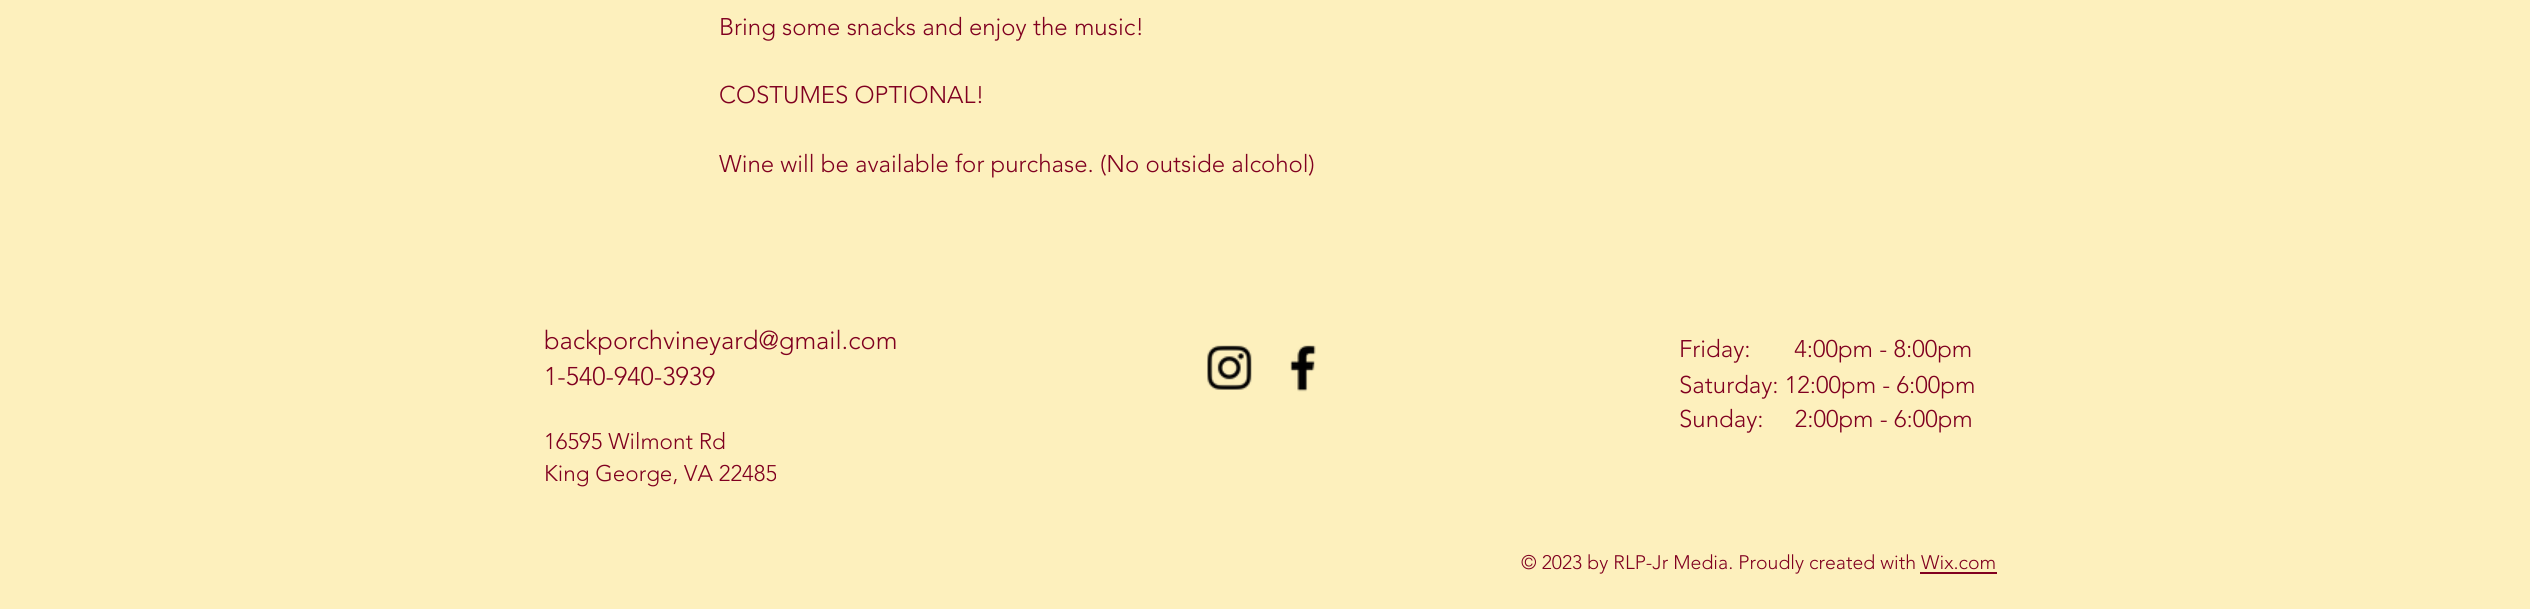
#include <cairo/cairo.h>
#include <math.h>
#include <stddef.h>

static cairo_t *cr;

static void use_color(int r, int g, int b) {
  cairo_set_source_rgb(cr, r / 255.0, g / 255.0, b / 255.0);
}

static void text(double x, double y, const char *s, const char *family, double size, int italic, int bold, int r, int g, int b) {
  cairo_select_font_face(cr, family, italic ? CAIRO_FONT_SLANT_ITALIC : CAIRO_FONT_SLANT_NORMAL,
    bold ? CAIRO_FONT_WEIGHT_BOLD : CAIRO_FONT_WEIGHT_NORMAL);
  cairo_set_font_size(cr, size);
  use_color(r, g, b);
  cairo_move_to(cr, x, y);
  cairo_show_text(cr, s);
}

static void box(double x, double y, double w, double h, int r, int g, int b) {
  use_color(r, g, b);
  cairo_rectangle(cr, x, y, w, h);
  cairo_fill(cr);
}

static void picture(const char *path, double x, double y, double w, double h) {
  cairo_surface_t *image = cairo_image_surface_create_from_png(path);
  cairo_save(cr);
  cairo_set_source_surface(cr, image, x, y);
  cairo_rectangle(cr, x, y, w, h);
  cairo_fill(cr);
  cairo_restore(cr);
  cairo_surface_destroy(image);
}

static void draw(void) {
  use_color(253, 240, 189);
  cairo_paint(cr);
  picture("img_01.png", 1207, 345, 45, 45);
  picture("img_02.png", 1290, 345, 26, 47);
  box(1920, 572, 77, 2, 128, 0, 32);
  text(719, 35, "Bring some snacks and enjoy the music!", "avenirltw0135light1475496 Light", 24, 0, 0, 128, 0, 32);
  text(719, 103, "COSTUMES OPTIONAL!", "avenirltw0135light1475496 Light", 24, 0, 0, 128, 0, 32);
  text(719, 172, "Wine will be available for purchase. (No outside alcohol)", "avenirltw0135light1475496 Light", 24, 0, 0, 128, 0, 32);
  text(544, 349, "backporchvineyard@gmail.com", "avenirltw0135light1475496 Light", 25.5, 0, 0, 128, 0, 32);
  text(544, 385, "1-540-940-3939", "avenirltw0135light1475496 Light", 25.5, 0, 0, 128, 0, 32);
  text(544, 449, "16595 Wilmont Rd", "avenirltw0135light1475496 Light", 22.5, 0, 0, 128, 0, 32);
  text(544, 481, "King George, VA 22485", "avenirltw0135light1475496 Light", 22.5, 0, 0, 128, 0, 32);
  text(1679, 357, "Friday:       4:00pm - 8:00pm", "avenirltw0135light1475496 Light", 24, 0, 0, 128, 0, 32);
  text(1679, 393, "Saturday: 12:00pm - 6:00pm", "avenirltw0135light1475496 Light", 24, 0, 0, 128, 0, 32);
  text(1679, 427, "Sunday:     2:00pm - 6:00pm", "avenirltw0135light1475496 Light", 24, 0, 0, 128, 0, 32);
  text(1521, 569, "© 2023 by RLP-Jr Media. Proudly created with Wix.com", "avenirltw0135light1475496 Light", 19.5, 0, 0, 128, 0, 32);
}

int main(void) {
  cairo_surface_t *surface = cairo_image_surface_create(CAIRO_FORMAT_RGB24, 2530, 609);
  cr = cairo_create(surface);
  cairo_font_options_t *options = cairo_font_options_create();
  cairo_font_options_set_hint_metrics(options, CAIRO_HINT_METRICS_OFF);
  cairo_font_options_set_hint_style(options, CAIRO_HINT_STYLE_NONE);
  cairo_set_font_options(cr, options);
  cairo_set_miter_limit(cr, 4);
  draw();
  cairo_surface_write_to_png(surface, "out.png");
  cairo_font_options_destroy(options);
  cairo_destroy(cr);
  cairo_surface_destroy(surface);
  return 0;
}
